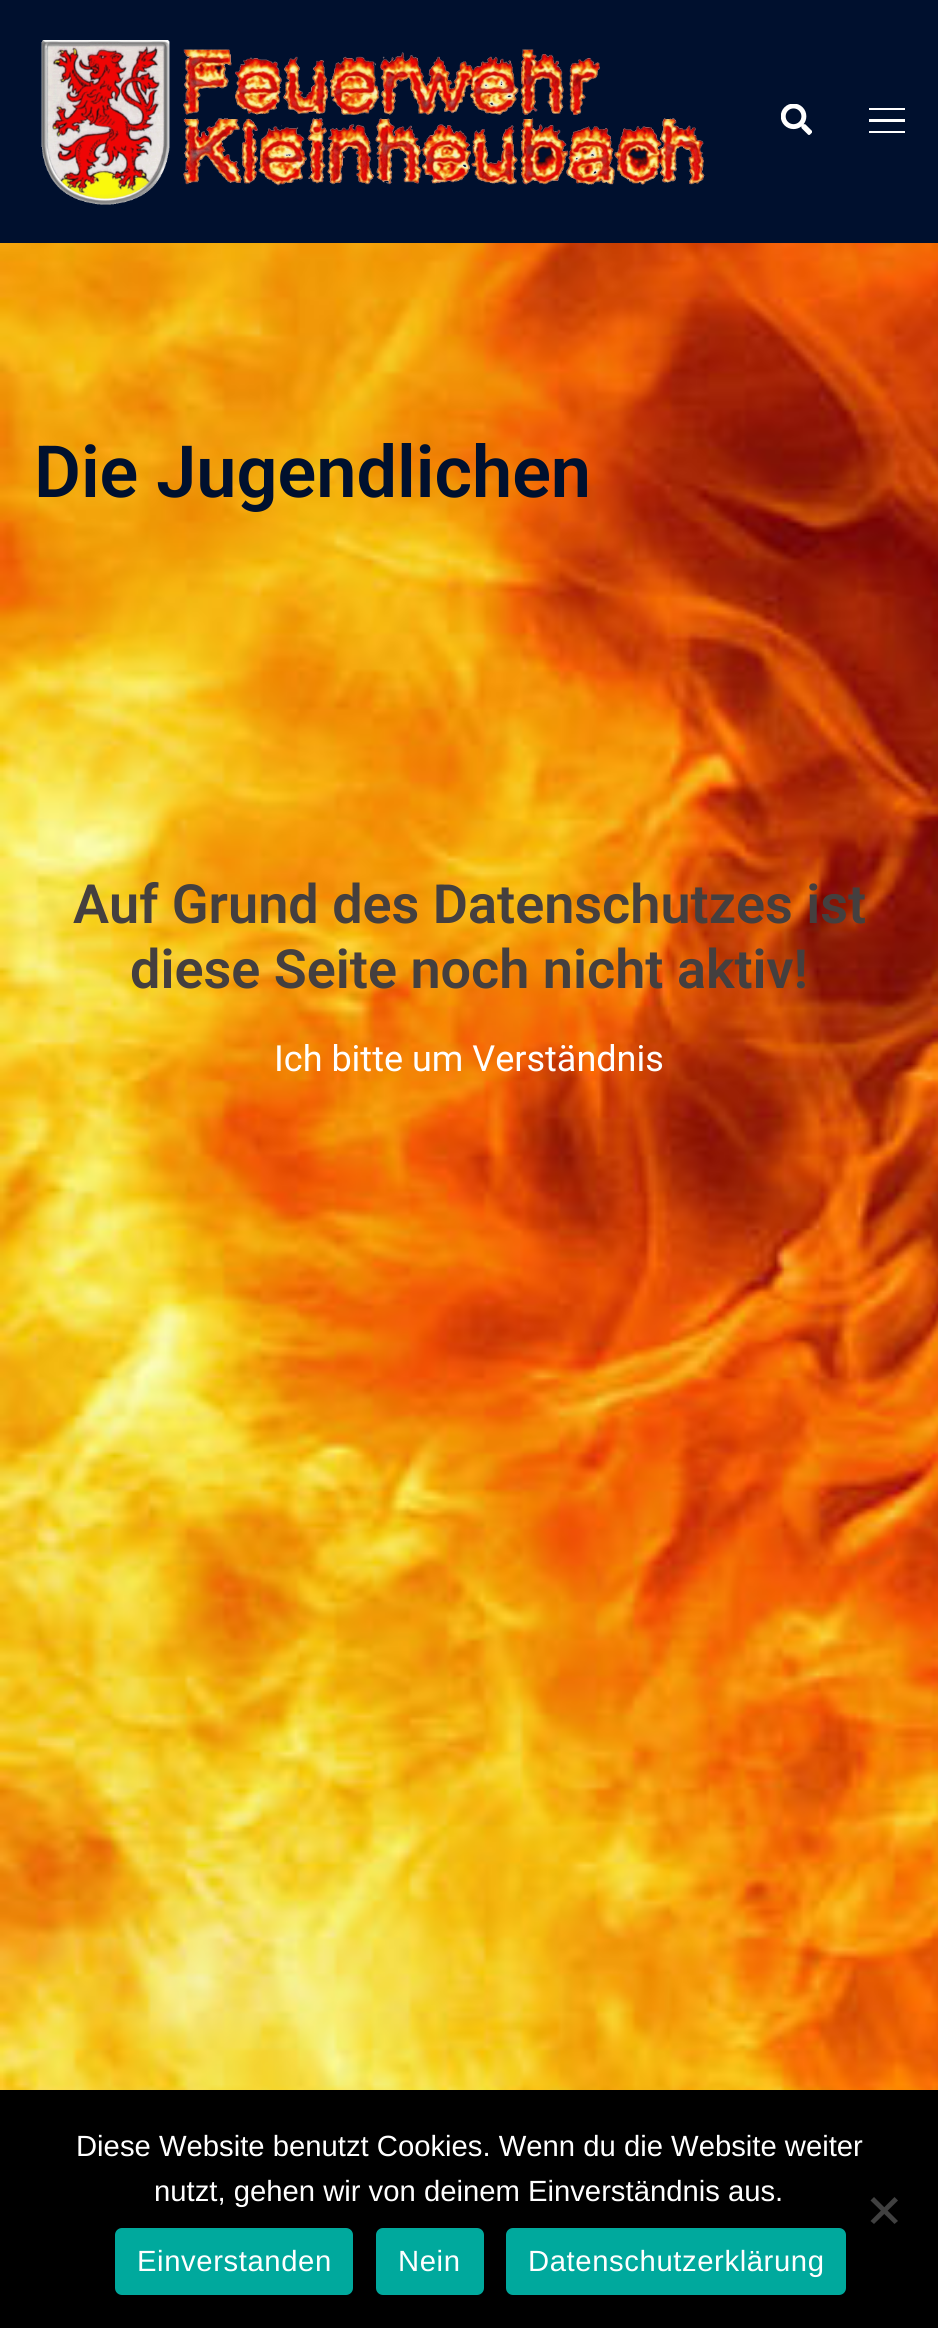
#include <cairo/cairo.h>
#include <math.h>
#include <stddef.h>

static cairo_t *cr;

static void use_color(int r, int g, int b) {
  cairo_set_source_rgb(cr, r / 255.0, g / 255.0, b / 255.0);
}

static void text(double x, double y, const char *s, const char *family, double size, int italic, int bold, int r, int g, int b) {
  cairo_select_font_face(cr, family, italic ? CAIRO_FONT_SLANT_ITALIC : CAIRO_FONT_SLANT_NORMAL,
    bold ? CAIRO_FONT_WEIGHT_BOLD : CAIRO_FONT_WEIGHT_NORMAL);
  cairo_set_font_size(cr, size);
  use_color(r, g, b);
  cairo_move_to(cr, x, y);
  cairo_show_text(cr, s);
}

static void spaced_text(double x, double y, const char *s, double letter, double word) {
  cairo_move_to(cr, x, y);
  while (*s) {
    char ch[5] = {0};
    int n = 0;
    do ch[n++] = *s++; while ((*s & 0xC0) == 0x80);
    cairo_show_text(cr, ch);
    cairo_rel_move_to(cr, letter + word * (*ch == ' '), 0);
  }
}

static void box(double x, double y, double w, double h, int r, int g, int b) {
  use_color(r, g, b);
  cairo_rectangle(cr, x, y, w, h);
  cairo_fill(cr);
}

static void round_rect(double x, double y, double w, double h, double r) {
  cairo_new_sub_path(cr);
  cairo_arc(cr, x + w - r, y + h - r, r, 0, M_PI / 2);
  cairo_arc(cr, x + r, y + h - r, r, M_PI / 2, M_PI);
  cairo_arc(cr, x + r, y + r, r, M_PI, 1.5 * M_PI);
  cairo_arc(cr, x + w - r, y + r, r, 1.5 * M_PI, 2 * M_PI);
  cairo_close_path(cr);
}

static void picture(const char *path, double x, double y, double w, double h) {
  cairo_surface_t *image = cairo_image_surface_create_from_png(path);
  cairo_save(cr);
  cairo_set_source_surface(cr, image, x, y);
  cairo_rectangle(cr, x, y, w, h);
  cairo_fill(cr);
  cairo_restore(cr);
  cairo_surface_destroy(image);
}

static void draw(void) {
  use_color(255, 255, 255);
  cairo_paint(cr);
  picture("img_01.png", 0, 243, 938, 1847);
  box(0, 0, 938, 243, 0, 16, 46);
  picture("img_02.png", 41, 40, 664, 165);
  picture("img_03.png", 781, 104, 31, 31);
  box(869, 108, 36, 2, 255, 255, 255);
  box(869, 119, 36, 3, 255, 255, 255);
  box(869, 131, 36, 2, 255, 255, 255);
  box(0, 2090, 938, 238, 0, 0, 0);
  use_color(64, 64, 64);
  cairo_new_path(cr);
  cairo_move_to(cr, 894.5, 2197);
  cairo_line_to(cr, 898, 2200.5);
  cairo_line_to(cr, 874, 2224);
  cairo_line_to(cr, 870.5, 2221);
  cairo_close_path(cr);
  cairo_fill(cr);
  cairo_new_path(cr);
  cairo_move_to(cr, 870.5, 2200.5);
  cairo_line_to(cr, 874, 2197);
  cairo_line_to(cr, 898, 2221);
  cairo_line_to(cr, 894.5, 2224);
  cairo_close_path(cr);
  cairo_fill(cr);
  use_color(0, 169, 157);
  round_rect(115, 2228, 238, 67, 7);
  cairo_fill(cr);
  round_rect(376, 2228, 108, 67, 7);
  cairo_fill(cr);
  round_rect(506, 2228, 340, 67, 7);
  cairo_fill(cr);
  text(34, 497, "Die Jugendlichen", "Roboto SemiBold", 72, 0, 0, 0, 16, 46);
  text(73, 923, "Auf Grund des Datenschutzes ist", "Roboto SemiBold", 54, 0, 0, 68, 63, 63);
  text(130, 988, "diese Seite noch nicht aktiv!", "Roboto SemiBold", 54, 0, 0, 68, 63, 63);
  text(274, 1071, "Ich bitte um Verständnis", "Roboto", 36, 0, 0, 255, 255, 255);
  text(76, 2156, "Diese Website benutzt Cookies. Wenn du die Website weiter", "Liberation Sans", 29.25, 0, 0, 255, 255, 255);
  text(154, 2201, "nutzt, gehen wir von deinem Einverständnis aus.", "Liberation Sans", 29.25, 0, 0, 255, 255, 255);
  spaced_text(137, 2271, "Einverstanden", 0.6, 0);
  spaced_text(398, 2271, "Nein", 0.6, 0);
  spaced_text(528, 2271, "Datenschutzerklärung", 0.6, 0);
}

int main(void) {
  cairo_surface_t *surface = cairo_image_surface_create(CAIRO_FORMAT_RGB24, 938, 2328);
  cr = cairo_create(surface);
  cairo_font_options_t *options = cairo_font_options_create();
  cairo_font_options_set_hint_metrics(options, CAIRO_HINT_METRICS_OFF);
  cairo_font_options_set_hint_style(options, CAIRO_HINT_STYLE_NONE);
  cairo_set_font_options(cr, options);
  cairo_set_miter_limit(cr, 4);
  draw();
  cairo_surface_write_to_png(surface, "out.png");
  cairo_font_options_destroy(options);
  cairo_destroy(cr);
  cairo_surface_destroy(surface);
  return 0;
}
